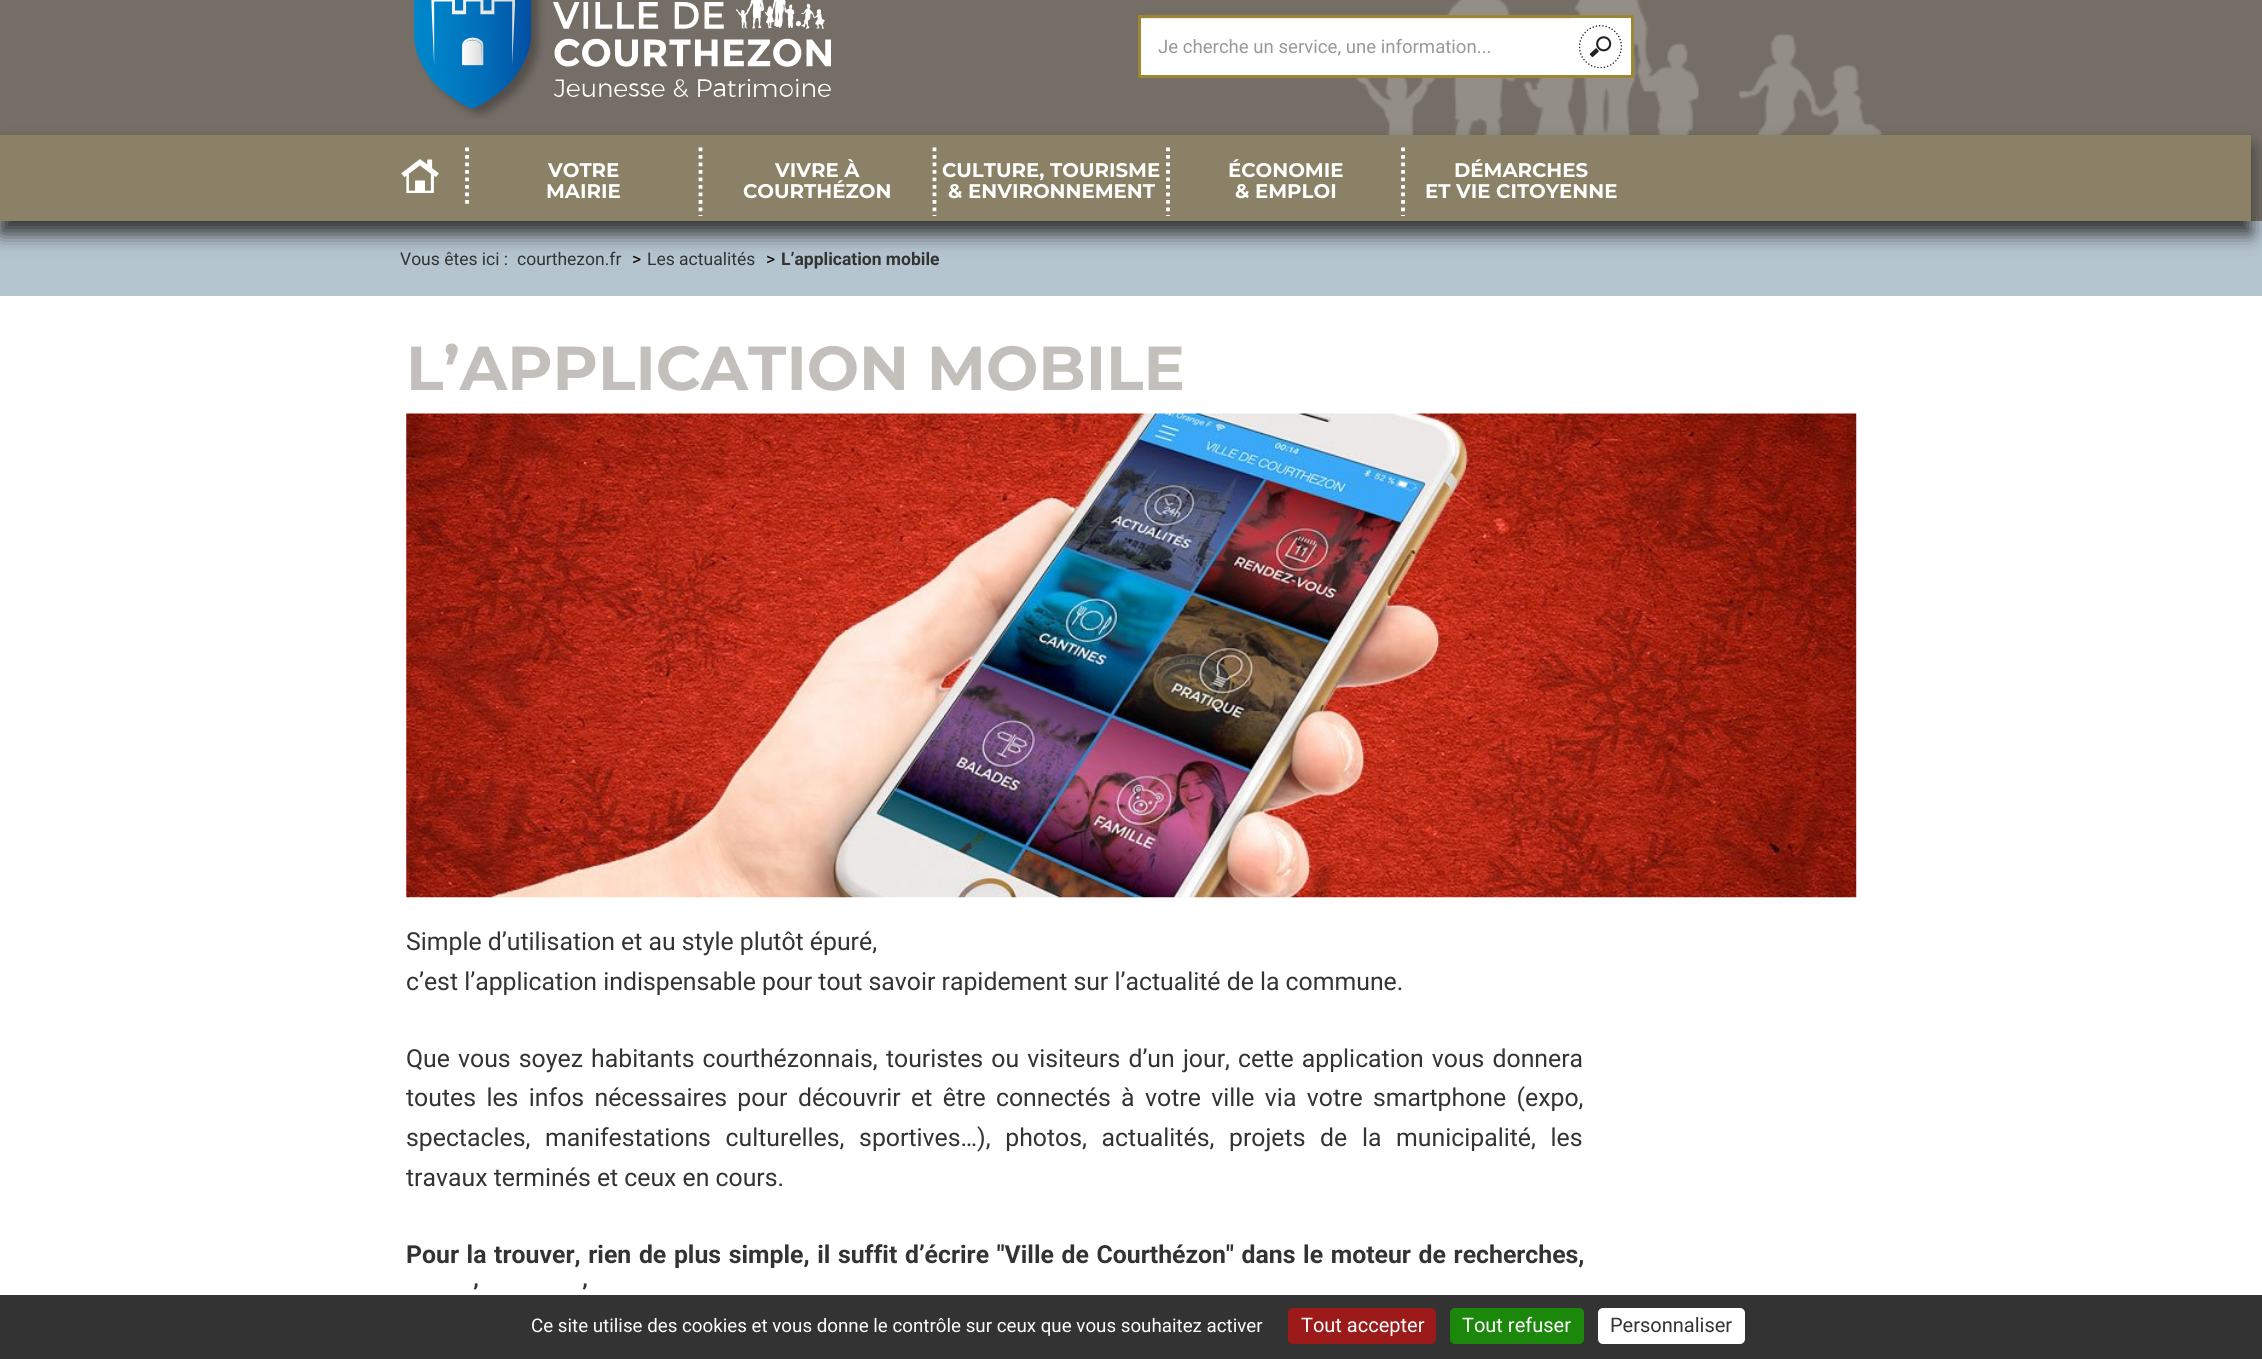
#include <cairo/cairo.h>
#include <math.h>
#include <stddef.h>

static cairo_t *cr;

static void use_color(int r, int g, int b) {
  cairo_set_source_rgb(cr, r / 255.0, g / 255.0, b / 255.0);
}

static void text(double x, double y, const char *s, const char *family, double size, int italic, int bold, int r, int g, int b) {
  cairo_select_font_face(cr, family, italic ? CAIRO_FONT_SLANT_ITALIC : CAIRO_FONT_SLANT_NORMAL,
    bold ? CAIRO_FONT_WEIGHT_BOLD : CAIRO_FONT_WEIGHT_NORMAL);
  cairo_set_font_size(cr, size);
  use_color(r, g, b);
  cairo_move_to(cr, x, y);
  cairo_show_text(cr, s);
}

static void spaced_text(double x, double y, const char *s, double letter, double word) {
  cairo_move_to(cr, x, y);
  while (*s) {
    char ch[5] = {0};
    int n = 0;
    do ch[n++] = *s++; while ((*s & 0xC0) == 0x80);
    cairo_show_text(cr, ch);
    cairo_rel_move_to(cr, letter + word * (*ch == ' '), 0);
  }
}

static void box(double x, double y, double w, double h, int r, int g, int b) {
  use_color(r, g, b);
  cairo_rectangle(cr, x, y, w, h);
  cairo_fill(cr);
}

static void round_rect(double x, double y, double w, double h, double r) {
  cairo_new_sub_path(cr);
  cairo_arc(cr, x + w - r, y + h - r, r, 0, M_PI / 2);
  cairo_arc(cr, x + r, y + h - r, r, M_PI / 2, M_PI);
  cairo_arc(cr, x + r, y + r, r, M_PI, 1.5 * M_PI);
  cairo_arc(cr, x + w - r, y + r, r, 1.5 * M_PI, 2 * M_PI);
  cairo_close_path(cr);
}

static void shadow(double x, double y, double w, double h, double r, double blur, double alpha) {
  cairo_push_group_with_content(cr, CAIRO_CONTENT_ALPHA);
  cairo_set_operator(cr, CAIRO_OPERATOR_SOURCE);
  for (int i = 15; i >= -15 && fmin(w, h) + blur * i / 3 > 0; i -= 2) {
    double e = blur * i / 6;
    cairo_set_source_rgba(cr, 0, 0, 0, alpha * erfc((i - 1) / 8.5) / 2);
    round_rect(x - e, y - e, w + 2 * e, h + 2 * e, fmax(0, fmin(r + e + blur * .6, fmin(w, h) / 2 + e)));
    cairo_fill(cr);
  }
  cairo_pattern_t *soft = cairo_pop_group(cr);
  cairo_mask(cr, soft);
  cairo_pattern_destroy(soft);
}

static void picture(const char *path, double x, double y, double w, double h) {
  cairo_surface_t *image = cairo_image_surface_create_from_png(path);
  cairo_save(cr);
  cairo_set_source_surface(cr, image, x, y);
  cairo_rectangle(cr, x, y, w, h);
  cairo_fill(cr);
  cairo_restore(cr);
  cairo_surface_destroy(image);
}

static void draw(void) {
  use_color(255, 255, 255);
  cairo_paint(cr);
  box(0, 0, 2262, 221, 116, 110, 102);
  picture("img_01.png", 1356, 0, 526, 135);
  box(0, 221, 2262, 75, 180, 197, 207);
  use_color(51, 51, 51);
  shadow(0, 148, 2251, 86, 0, 9.5, 1);
  picture("img_02.png", 413, 0, 418, 119);
  box(1141, 19, 430, 56, 255, 255, 255);
  box(1140, 18, 431, 1, 236, 236, 236);
  box(1138, 15, 496, 3, 157, 134, 49);
  box(1138, 75, 433, 3, 157, 134, 49);
  box(1138, 15, 3, 63, 157, 134, 49);
  box(1571, 18, 60, 57, 255, 255, 255);
  picture("img_03.png", 1579, 25, 44, 43);
  box(1631, 15, 3, 63, 157, 134, 49);
  box(1571, 75, 63, 3, 157, 134, 49);
  box(0, 135, 2251, 86, 138, 129, 102);
  cairo_new_path(cr);
  cairo_move_to(cr, 467, 147.5);
  cairo_line_to(cr, 467, 207.5);
  use_color(255, 255, 255);
  cairo_set_line_width(cr, 3.8);
  cairo_set_dash(cr, (double[]){3.75, 3.75}, 2, 0);
  cairo_stroke(cr);
  picture("img_04.png", 401, 159, 38, 34);
  cairo_new_path(cr);
  cairo_move_to(cr, 700.5, 147.5);
  cairo_line_to(cr, 700.5, 216);
  cairo_stroke(cr);
  cairo_new_path(cr);
  cairo_move_to(cr, 934.5, 147.5);
  cairo_line_to(cr, 934.5, 216);
  cairo_stroke(cr);
  cairo_new_path(cr);
  cairo_move_to(cr, 1168, 147.5);
  cairo_line_to(cr, 1168, 216);
  cairo_stroke(cr);
  cairo_new_path(cr);
  cairo_move_to(cr, 1403, 147.5);
  cairo_line_to(cr, 1403, 216);
  cairo_stroke(cr);
  picture("img_05.png", 406, 413, 1451, 485);
  box(0, 1295, 2262, 64, 51, 51, 51);
  use_color(156, 26, 26);
  round_rect(1288, 1308, 148, 36, 5);
  cairo_fill(cr);
  use_color(27, 135, 11);
  round_rect(1450, 1308, 134, 36, 5);
  cairo_fill(cr);
  use_color(255, 255, 255);
  round_rect(1598, 1308, 147, 36, 5);
  cairo_fill(cr);
  text(1158, 53, "Je cherche un service, une information...", "Roboto", 18.6, 0, 0, 153, 153, 153);
  text(548, 177, "VOTRE", "Montserrat", 19.75, 0, 1, 255, 255, 255);
  text(546, 198, "MAIRIE", "Montserrat", 19.75, 0, 1, 255, 255, 255);
  text(775, 177, "VIVRE À", "Montserrat", 19.75, 0, 1, 255, 255, 255);
  text(743, 198, "COURTHÉZON", "Montserrat", 19.75, 0, 1, 255, 255, 255);
  text(942, 177, "CULTURE, TOURISME", "Montserrat", 19.75, 0, 1, 255, 255, 255);
  text(948, 198, "& ENVIRONNEMENT", "Montserrat", 19.75, 0, 1, 255, 255, 255);
  text(1228, 177, "ÉCONOMIE", "Montserrat", 19.75, 0, 1, 255, 255, 255);
  text(1235, 198, "& EMPLOI", "Montserrat", 19.75, 0, 1, 255, 255, 255);
  text(1454, 177, "DÉMARCHES", "Montserrat", 19.75, 0, 1, 255, 255, 255);
  text(1425, 198, "ET VIE CITOYENNE", "Montserrat", 19.75, 0, 1, 255, 255, 255);
  text(400, 265, "Vous êtes ici :", "Roboto", 17.5, 0, 0, 51, 51, 51);
  text(517, 265, "courthezon.fr", "Roboto", 17.5, 0, 0, 51, 51, 51);
  text(632, 265, ">", "Roboto", 17.5, 0, 0, 0, 0, 0);
  text(647, 265, "Les actualités", "Roboto", 17.5, 0, 0, 51, 51, 51);
  text(766, 265, ">", "Roboto", 17.5, 0, 0, 0, 0, 0);
  text(781, 265, "L’application mobile", "Roboto", 17.5, 0, 1, 51, 51, 51);
  text(406, 390, "L’APPLICATION MOBILE", "Montserrat", 62, 0, 1, 195, 192, 188);
  text(406, 950, "Simple d’utilisation et au style plutôt épuré,", "Roboto", 24.8, 0, 0, 51, 51, 51);
  text(406, 990, "c’est l’application indispensable pour tout savoir rapidement sur l’actualité de la commune.", "Roboto", 24.8, 0, 0, 51, 51, 51);
  spaced_text(406, 1067, "Que vous soyez habitants courthézonnais, touristes ou visiteurs d’un jour, cette application vous donnera", 0, 2);
  spaced_text(406, 1106, "toutes les infos nécessaires pour découvrir et être connectés à votre ville via votre smartphone (expo,", 0, 4.25);
  spaced_text(406, 1146, "spectacles, manifestations culturelles, sportives…), photos, actualités, projets de la municipalité, les", 0, 8.5);
  text(406, 1186, "travaux terminés et ceux en cours.", "Roboto", 24.8, 0, 0, 51, 51, 51);
  cairo_select_font_face(cr, "Roboto", CAIRO_FONT_SLANT_NORMAL, CAIRO_FONT_WEIGHT_BOLD);
  spaced_text(406, 1263, "Pour la trouver, rien de plus simple, il suffit d’écrire \"Ville de Courthézon\" dans le moteur de recherches,", 0, 1.5);
  text(473, 1302, "’", "Roboto", 24.8, 0, 1, 51, 51, 51);
  text(582, 1302, "’", "Roboto", 24.8, 0, 1, 51, 51, 51);
  text(531, 1332, "Ce site utilise des cookies et vous donne le contrôle sur ceux que vous souhaitez activer", "Roboto", 18.75, 0, 0, 255, 255, 255);
  text(1301, 1332, "Tout accepter", "Roboto", 20, 0, 0, 255, 255, 255);
  text(1462, 1332, "Tout refuser", "Roboto", 20, 0, 0, 255, 255, 255);
  text(1610, 1332, "Personnaliser", "Roboto", 20, 0, 0, 51, 51, 51);
}

int main(void) {
  cairo_surface_t *surface = cairo_image_surface_create(CAIRO_FORMAT_RGB24, 2262, 1359);
  cr = cairo_create(surface);
  cairo_font_options_t *options = cairo_font_options_create();
  cairo_font_options_set_hint_metrics(options, CAIRO_HINT_METRICS_OFF);
  cairo_font_options_set_hint_style(options, CAIRO_HINT_STYLE_NONE);
  cairo_set_font_options(cr, options);
  cairo_set_miter_limit(cr, 4);
  draw();
  cairo_surface_write_to_png(surface, "out.png");
  cairo_font_options_destroy(options);
  cairo_destroy(cr);
  cairo_surface_destroy(surface);
  return 0;
}
